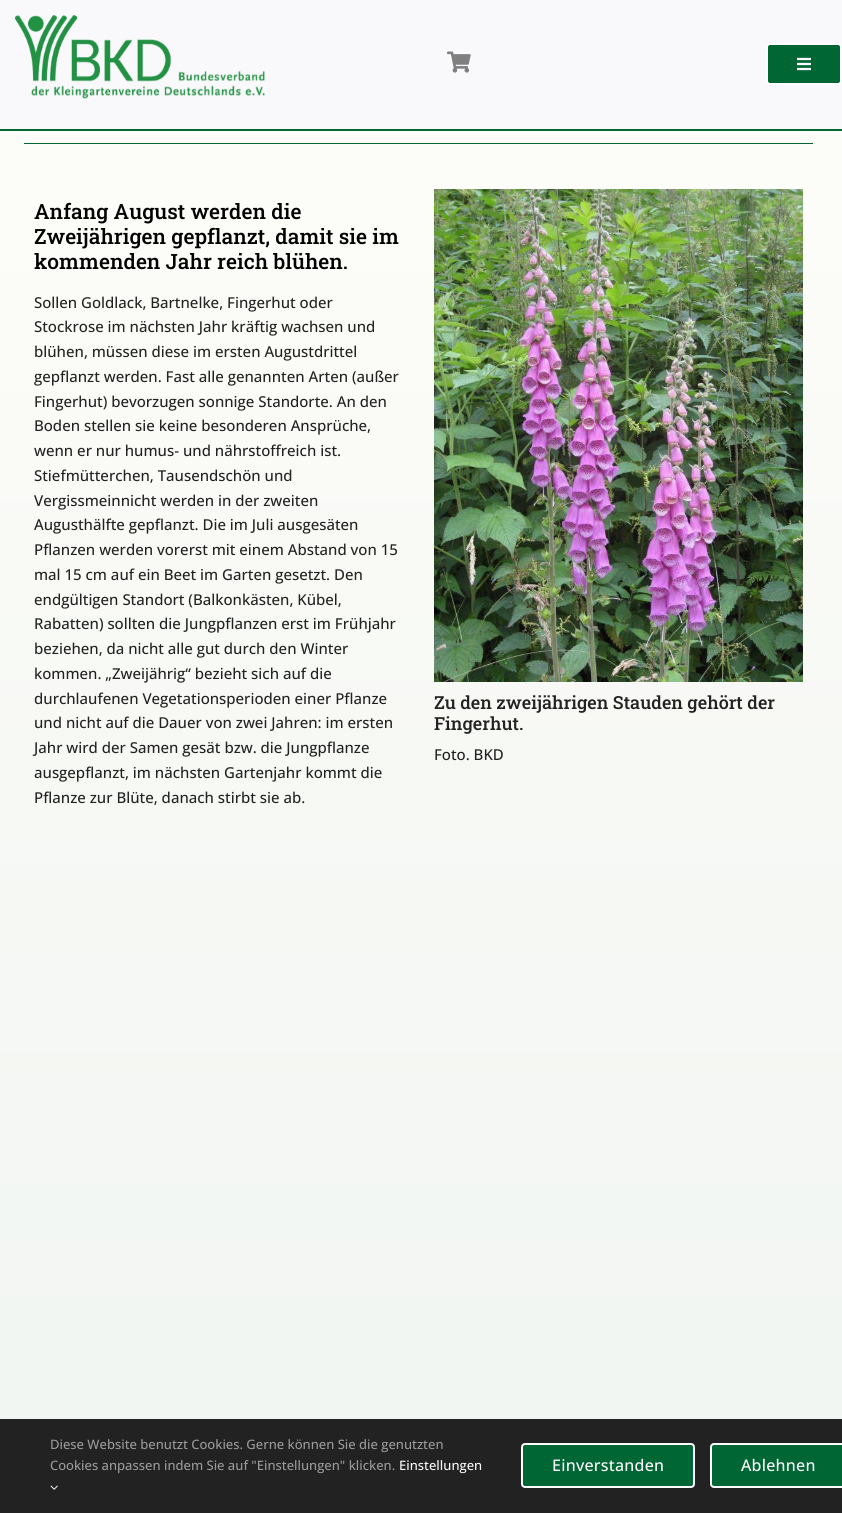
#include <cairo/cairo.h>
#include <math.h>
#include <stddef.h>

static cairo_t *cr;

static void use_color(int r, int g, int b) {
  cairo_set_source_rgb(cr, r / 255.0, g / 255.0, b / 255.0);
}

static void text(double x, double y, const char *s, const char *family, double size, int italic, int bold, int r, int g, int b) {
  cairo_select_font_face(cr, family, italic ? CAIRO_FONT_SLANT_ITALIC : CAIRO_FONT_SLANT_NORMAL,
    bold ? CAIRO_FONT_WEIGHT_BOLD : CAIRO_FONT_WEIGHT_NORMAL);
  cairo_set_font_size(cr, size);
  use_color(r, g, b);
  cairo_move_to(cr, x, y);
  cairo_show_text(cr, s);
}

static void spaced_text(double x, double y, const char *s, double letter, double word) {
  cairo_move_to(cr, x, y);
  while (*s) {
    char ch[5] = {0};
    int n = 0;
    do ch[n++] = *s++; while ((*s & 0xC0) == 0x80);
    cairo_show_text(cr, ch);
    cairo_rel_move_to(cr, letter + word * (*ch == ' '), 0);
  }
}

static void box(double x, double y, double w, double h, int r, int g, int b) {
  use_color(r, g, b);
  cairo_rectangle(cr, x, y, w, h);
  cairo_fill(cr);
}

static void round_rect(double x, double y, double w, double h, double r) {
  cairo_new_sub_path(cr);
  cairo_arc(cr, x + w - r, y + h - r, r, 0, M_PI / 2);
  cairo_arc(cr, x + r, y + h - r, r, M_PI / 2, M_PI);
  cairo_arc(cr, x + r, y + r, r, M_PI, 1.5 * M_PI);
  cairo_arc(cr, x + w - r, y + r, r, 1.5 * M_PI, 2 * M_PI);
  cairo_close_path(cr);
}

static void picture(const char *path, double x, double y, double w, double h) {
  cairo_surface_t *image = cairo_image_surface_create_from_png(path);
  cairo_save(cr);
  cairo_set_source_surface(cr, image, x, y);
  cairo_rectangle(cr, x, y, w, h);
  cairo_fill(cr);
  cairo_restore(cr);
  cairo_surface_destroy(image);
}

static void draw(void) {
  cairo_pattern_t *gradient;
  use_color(255, 255, 255);
  cairo_paint(cr);
  box(0, 0, 842, 129, 249, 249, 251);
  box(0, 129, 842, 2, 0, 102, 51);
  picture("img_01.png", 15, 15, 250, 84);
  picture("img_02.png", 447, 51, 24, 22);
  round_rect(767, 44, 74, 40, 3);
  cairo_fill_preserve(cr);
  use_color(255, 255, 255);
  cairo_stroke(cr);
  picture("img_03.png", 797, 57, 14, 14);
  gradient = cairo_pattern_create_linear(421, 0, 421, 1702);
  cairo_pattern_add_color_stop_rgba(gradient, 0.13, 0.988, 0.988, 0.973, 1);
  cairo_pattern_add_color_stop_rgba(gradient, 1, 0.937, 0.957, 0.941, 1);
  cairo_set_source(cr, gradient);
  cairo_pattern_destroy(gradient);
  cairo_rectangle(cr, 0, 131, 842, 1288);
  cairo_fill(cr);
  box(24, 143, 789, 1, 0, 102, 51);
  picture("img_04.png", 434, 189, 369, 493);
  box(0, 1419, 842, 94, 34, 34, 34);
  picture("img_05.png", 50, 1485, 8, 5);
  use_color(0, 102, 51);
  round_rect(522, 1444, 172, 43, 3);
  cairo_fill_preserve(cr);
  use_color(255, 255, 255);
  cairo_stroke(cr);
  use_color(0, 102, 51);
  cairo_new_path(cr);
  cairo_move_to(cr, 714, 1443);
  cairo_line_to(cr, 842, 1443);
  cairo_line_to(cr, 842, 1488);
  cairo_line_to(cr, 714, 1488);
  cairo_curve_to(cr, 712, 1488, 710, 1486, 710, 1484);
  cairo_line_to(cr, 710, 1447);
  cairo_curve_to(cr, 710, 1445, 712, 1443, 714, 1443);
  cairo_close_path(cr);
  cairo_fill(cr);
  round_rect(711, 1444, 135, 43, 3);
  use_color(255, 255, 255);
  cairo_stroke(cr);
  text(34, 219, "Anfang August werden die", "Roboto Slab Medium", 21, 0, 0, 0, 0, 0);
  text(34, 244, "Zweijährigen gepflanzt, damit sie im", "Roboto Slab Medium", 21, 0, 0, 0, 0, 0);
  text(34, 269, "kommenden Jahr reich blühen.", "Roboto Slab Medium", 21, 0, 0, 0, 0, 0);
  text(34, 308, "Sollen Goldlack, Bartnelke, Fingerhut oder", "Open Sans Medium", 15, 0, 0, 34, 34, 34);
  text(34, 332, "Stockrose im nächsten Jahr kräftig wachsen und", "Open Sans Medium", 15, 0, 0, 34, 34, 34);
  text(34, 357, "blühen, müssen diese im ersten Augustdrittel", "Open Sans Medium", 15, 0, 0, 34, 34, 34);
  text(34, 382, "gepflanzt werden. Fast alle genannten Arten (außer", "Open Sans Medium", 15, 0, 0, 34, 34, 34);
  text(34, 407, "Fingerhut) bevorzugen sonnige Standorte. An den", "Open Sans Medium", 15, 0, 0, 34, 34, 34);
  text(34, 431, "Boden stellen sie keine besonderen Ansprüche,", "Open Sans Medium", 15, 0, 0, 34, 34, 34);
  text(34, 456, "wenn er nur humus- und nährstoffreich ist.", "Open Sans Medium", 15, 0, 0, 34, 34, 34);
  text(34, 481, "Stiefmütterchen, Tausendschön und", "Open Sans Medium", 15, 0, 0, 34, 34, 34);
  text(34, 506, "Vergissmeinnicht werden in der zweiten", "Open Sans Medium", 15, 0, 0, 34, 34, 34);
  text(34, 530, "Augusthälfte gepflanzt. Die im Juli ausgesäten", "Open Sans Medium", 15, 0, 0, 34, 34, 34);
  text(34, 555, "Pflanzen werden vorerst mit einem Abstand von 15", "Open Sans Medium", 15, 0, 0, 34, 34, 34);
  text(34, 580, "mal 15 cm auf ein Beet im Garten gesetzt. Den", "Open Sans Medium", 15, 0, 0, 34, 34, 34);
  text(34, 605, "endgültigen Standort (Balkonkästen, Kübel,", "Open Sans Medium", 15, 0, 0, 34, 34, 34);
  text(34, 629, "Rabatten) sollten die Jungpflanzen erst im Frühjahr", "Open Sans Medium", 15, 0, 0, 34, 34, 34);
  text(34, 654, "beziehen, da nicht alle gut durch den Winter", "Open Sans Medium", 15, 0, 0, 34, 34, 34);
  text(34, 679, "kommen. „Zweijährig“ bezieht sich auf die", "Open Sans Medium", 15, 0, 0, 34, 34, 34);
  text(34, 704, "durchlaufenen Vegetationsperioden einer Pflanze", "Open Sans Medium", 15, 0, 0, 34, 34, 34);
  text(34, 728, "und nicht auf die Dauer von zwei Jahren: im ersten", "Open Sans Medium", 15, 0, 0, 34, 34, 34);
  text(34, 753, "Jahr wird der Samen gesät bzw. die Jungpflanze", "Open Sans Medium", 15, 0, 0, 34, 34, 34);
  text(34, 778, "ausgepflanzt, im nächsten Gartenjahr kommt die", "Open Sans Medium", 15, 0, 0, 34, 34, 34);
  text(34, 803, "Pflanze zur Blüte, danach stirbt sie ab.", "Open Sans Medium", 15, 0, 0, 34, 34, 34);
  text(434, 709, "Zu den zweijährigen Stauden gehört der", "Roboto Slab Medium", 18, 0, 0, 34, 34, 34);
  text(434, 730, "Fingerhut.", "Roboto Slab Medium", 18, 0, 0, 34, 34, 34);
  text(434, 760, "Foto. BKD", "Open Sans Medium", 15, 0, 0, 34, 34, 34);
  text(50, 1449, "Diese Website benutzt Cookies. Gerne können Sie die genutzten", "Open Sans Medium", 13, 0, 0, 153, 153, 153);
  text(50, 1470, "Cookies anpassen indem Sie auf \"Einstellungen\" klicken.", "Open Sans Medium", 13, 0, 0, 153, 153, 153);
  text(399, 1470, "Einstellungen", "Open Sans Medium", 13, 0, 0, 249, 249, 251);
  cairo_set_font_size(cr, 16);
  use_color(255, 255, 255);
  spaced_text(552, 1471, "Einverstanden", 0.25, 0);
  spaced_text(741, 1471, "Ablehnen", 0.25, 0);
}

int main(void) {
  cairo_surface_t *surface = cairo_image_surface_create(CAIRO_FORMAT_RGB24, 842, 1513);
  cr = cairo_create(surface);
  cairo_font_options_t *options = cairo_font_options_create();
  cairo_font_options_set_hint_metrics(options, CAIRO_HINT_METRICS_OFF);
  cairo_font_options_set_hint_style(options, CAIRO_HINT_STYLE_NONE);
  cairo_set_font_options(cr, options);
  cairo_set_miter_limit(cr, 4);
  draw();
  cairo_surface_write_to_png(surface, "out.png");
  cairo_font_options_destroy(options);
  cairo_destroy(cr);
  cairo_surface_destroy(surface);
  return 0;
}
